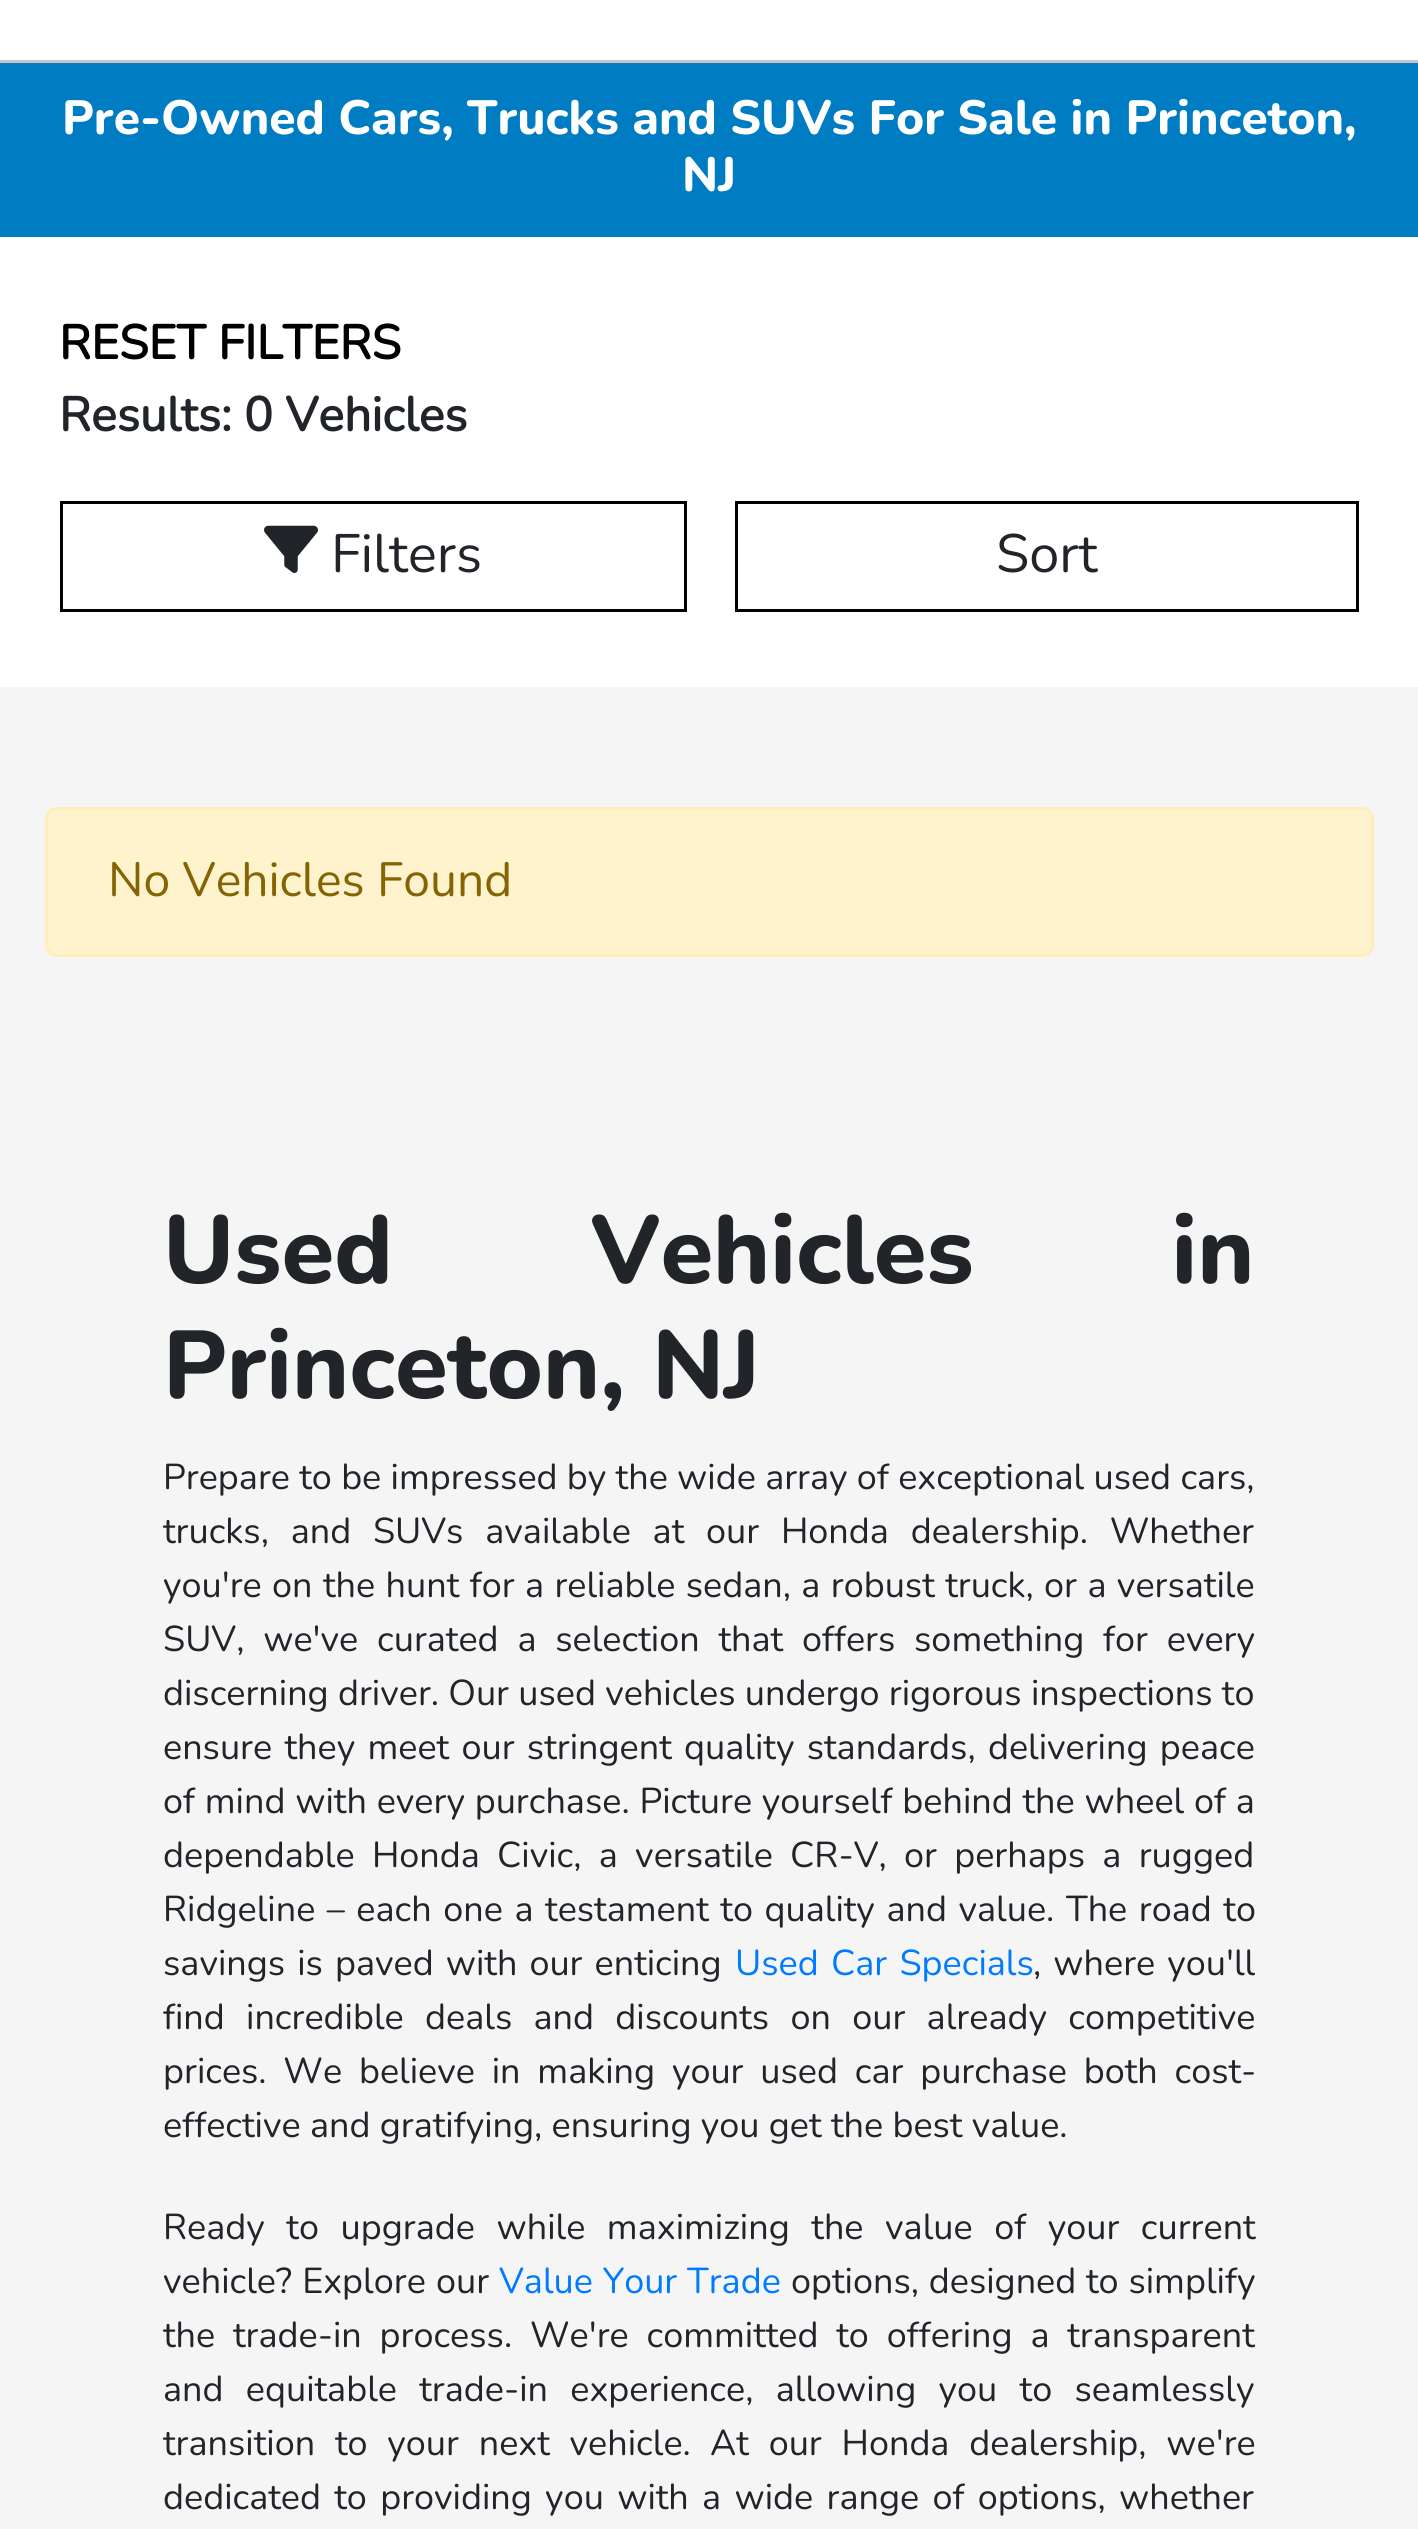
#include <cairo/cairo.h>
#include <math.h>
#include <stddef.h>

static cairo_t *cr;

static void use_color(int r, int g, int b) {
  cairo_set_source_rgb(cr, r / 255.0, g / 255.0, b / 255.0);
}

static void text(double x, double y, const char *s, const char *family, double size, int italic, int bold, int r, int g, int b) {
  cairo_select_font_face(cr, family, italic ? CAIRO_FONT_SLANT_ITALIC : CAIRO_FONT_SLANT_NORMAL,
    bold ? CAIRO_FONT_WEIGHT_BOLD : CAIRO_FONT_WEIGHT_NORMAL);
  cairo_set_font_size(cr, size);
  use_color(r, g, b);
  cairo_move_to(cr, x, y);
  cairo_show_text(cr, s);
}

static void spaced_text(double x, double y, const char *s, double letter, double word) {
  cairo_move_to(cr, x, y);
  while (*s) {
    char ch[5] = {0};
    int n = 0;
    do ch[n++] = *s++; while ((*s & 0xC0) == 0x80);
    cairo_show_text(cr, ch);
    cairo_rel_move_to(cr, letter + word * (*ch == ' '), 0);
  }
}

static void box(double x, double y, double w, double h, int r, int g, int b) {
  use_color(r, g, b);
  cairo_rectangle(cr, x, y, w, h);
  cairo_fill(cr);
}

static void round_rect(double x, double y, double w, double h, double r) {
  cairo_new_sub_path(cr);
  cairo_arc(cr, x + w - r, y + h - r, r, 0, M_PI / 2);
  cairo_arc(cr, x + r, y + h - r, r, M_PI / 2, M_PI);
  cairo_arc(cr, x + r, y + r, r, M_PI, 1.5 * M_PI);
  cairo_arc(cr, x + w - r, y + r, r, 1.5 * M_PI, 2 * M_PI);
  cairo_close_path(cr);
}

static void picture(const char *path, double x, double y, double w, double h) {
  cairo_surface_t *image = cairo_image_surface_create_from_png(path);
  cairo_save(cr);
  cairo_set_source_surface(cr, image, x, y);
  cairo_rectangle(cr, x, y, w, h);
  cairo_fill(cr);
  cairo_restore(cr);
  cairo_surface_destroy(image);
}

static void draw(void) {
  use_color(255, 255, 255);
  cairo_paint(cr);
  box(0, 687, 1418, 1842, 245, 245, 245);
  box(0, 63, 1418, 174, 0, 124, 195);
  box(0, 60, 1418, 3, 198, 198, 198);
  cairo_rectangle(cr, 61.5, 502.5, 624, 108);
  use_color(0, 0, 0);
  cairo_set_line_width(cr, 3);
  cairo_stroke(cr);
  picture("img_01.png", 264, 525, 54, 48);
  cairo_rectangle(cr, 736.5, 502.5, 621, 108);
  cairo_stroke(cr);
  use_color(255, 243, 205);
  round_rect(46.5, 808.5, 1326, 147, 10.5);
  cairo_fill_preserve(cr);
  use_color(255, 238, 186);
  cairo_stroke(cr);
  text(62, 134, "Pre-Owned Cars, Trucks and SUVs For Sale in Princeton,", "Nunito ExtraBold", 48, 0, 0, 255, 255, 255);
  text(682, 191, "NJ", "Nunito ExtraBold", 48, 0, 0, 255, 255, 255);
  text(59, 359, "RESET FILTERS", "Nunito", 48, 0, 1, 0, 0, 0);
  text(59, 431, "Results: 0 Vehicles", "Nunito", 48, 0, 1, 33, 37, 41);
  text(331, 572, "Filters", "Nunito", 54, 0, 0, 33, 37, 41);
  text(996, 572, "Sort", "Nunito", 54, 0, 0, 33, 37, 41);
  text(108, 896, "No Vehicles Found", "Nunito", 48, 0, 0, 133, 100, 4);
  cairo_select_font_face(cr, "Nunito ExtraBold", CAIRO_FONT_SLANT_NORMAL, CAIRO_FONT_WEIGHT_NORMAL);
  cairo_set_font_size(cr, 96);
  use_color(33, 37, 41);
  spaced_text(163, 1283, "Used Vehicles in", 0, 171);
  text(163, 1398, "Princeton, NJ", "Nunito ExtraBold", 96, 0, 0, 33, 37, 41);
  text(163, 1489, "Prepare to be impressed by the wide array of exceptional used cars,", "Nunito", 36, 0, 0, 33, 37, 41);
  spaced_text(163, 1543, "trucks, and SUVs available at our Honda dealership. Whether", 0, 12.5);
  spaced_text(163, 1597, "you're on the hunt for a reliable sedan, a robust truck, or a versatile", 0, 1.1);
  spaced_text(163, 1651, "SUV, we've curated a selection that offers something for every", 0, 9.5);
  text(163, 1705, "discerning driver. Our used vehicles undergo rigorous inspections to", "Nunito", 36, 0, 0, 33, 37, 41);
  spaced_text(163, 1759, "ensure they meet our stringent quality standards, delivering peace", 0, 3);
  spaced_text(163, 1813, "of mind with every purchase. Picture yourself behind the wheel of a", 0, 0.5);
  spaced_text(163, 1867, "dependable Honda Civic, a versatile CR-V, or perhaps a rugged", 0, 8);
  spaced_text(163, 1921, "Ridgeline – each one a testament to quality and value.", 0, 2.25);
  spaced_text(1066, 1921, "The road to", 0, 2.25);
  spaced_text(163, 1975, "savings is paved with our enticing", 0, 2.75);
  use_color(0, 123, 255);
  spaced_text(735, 1975, "Used Car Specials", 0, 3);
  use_color(33, 37, 41);
  spaced_text(1033, 1975, ", where you'll", 0, 2.75);
  spaced_text(163, 2029, "find incredible deals and discounts on our already competitive", 0, 12);
  spaced_text(163, 2083, "prices. We believe in making your used car purchase both cost-", 0, 7.5);
  text(163, 2137, "effective and gratifying, ensuring you get the best value.", "Nunito", 36, 0, 0, 33, 37, 41);
  spaced_text(163, 2239, "Ready to upgrade while maximizing the value of your current", 0, 12.25);
  spaced_text(163, 2293, "vehicle? Explore our", 0, 1);
  use_color(0, 123, 255);
  spaced_text(499, 2293, "Value Your Trade", 0, 0.5);
  use_color(33, 37, 41);
  spaced_text(791, 2293, "options, designed to simplify", 0, 0.5);
  spaced_text(163, 2347, "the trade-in process. We're committed to offering a transparent", 0, 8.5);
  spaced_text(163, 2401, "and equitable trade-in experience, allowing you to seamlessly", 0, 13);
  spaced_text(163, 2455, "transition to your next vehicle.", 0, 10.5);
  spaced_text(710, 2455, "At our Honda dealership, we're", 0, 10.5);
  spaced_text(163, 2509, "dedicated to providing you with a wide range of options, whether", 0, 4);
}

int main(void) {
  cairo_surface_t *surface = cairo_image_surface_create(CAIRO_FORMAT_RGB24, 1418, 2529);
  cr = cairo_create(surface);
  cairo_font_options_t *options = cairo_font_options_create();
  cairo_font_options_set_hint_metrics(options, CAIRO_HINT_METRICS_OFF);
  cairo_font_options_set_hint_style(options, CAIRO_HINT_STYLE_NONE);
  cairo_set_font_options(cr, options);
  cairo_set_miter_limit(cr, 4);
  draw();
  cairo_surface_write_to_png(surface, "out.png");
  cairo_font_options_destroy(options);
  cairo_destroy(cr);
  cairo_surface_destroy(surface);
  return 0;
}
